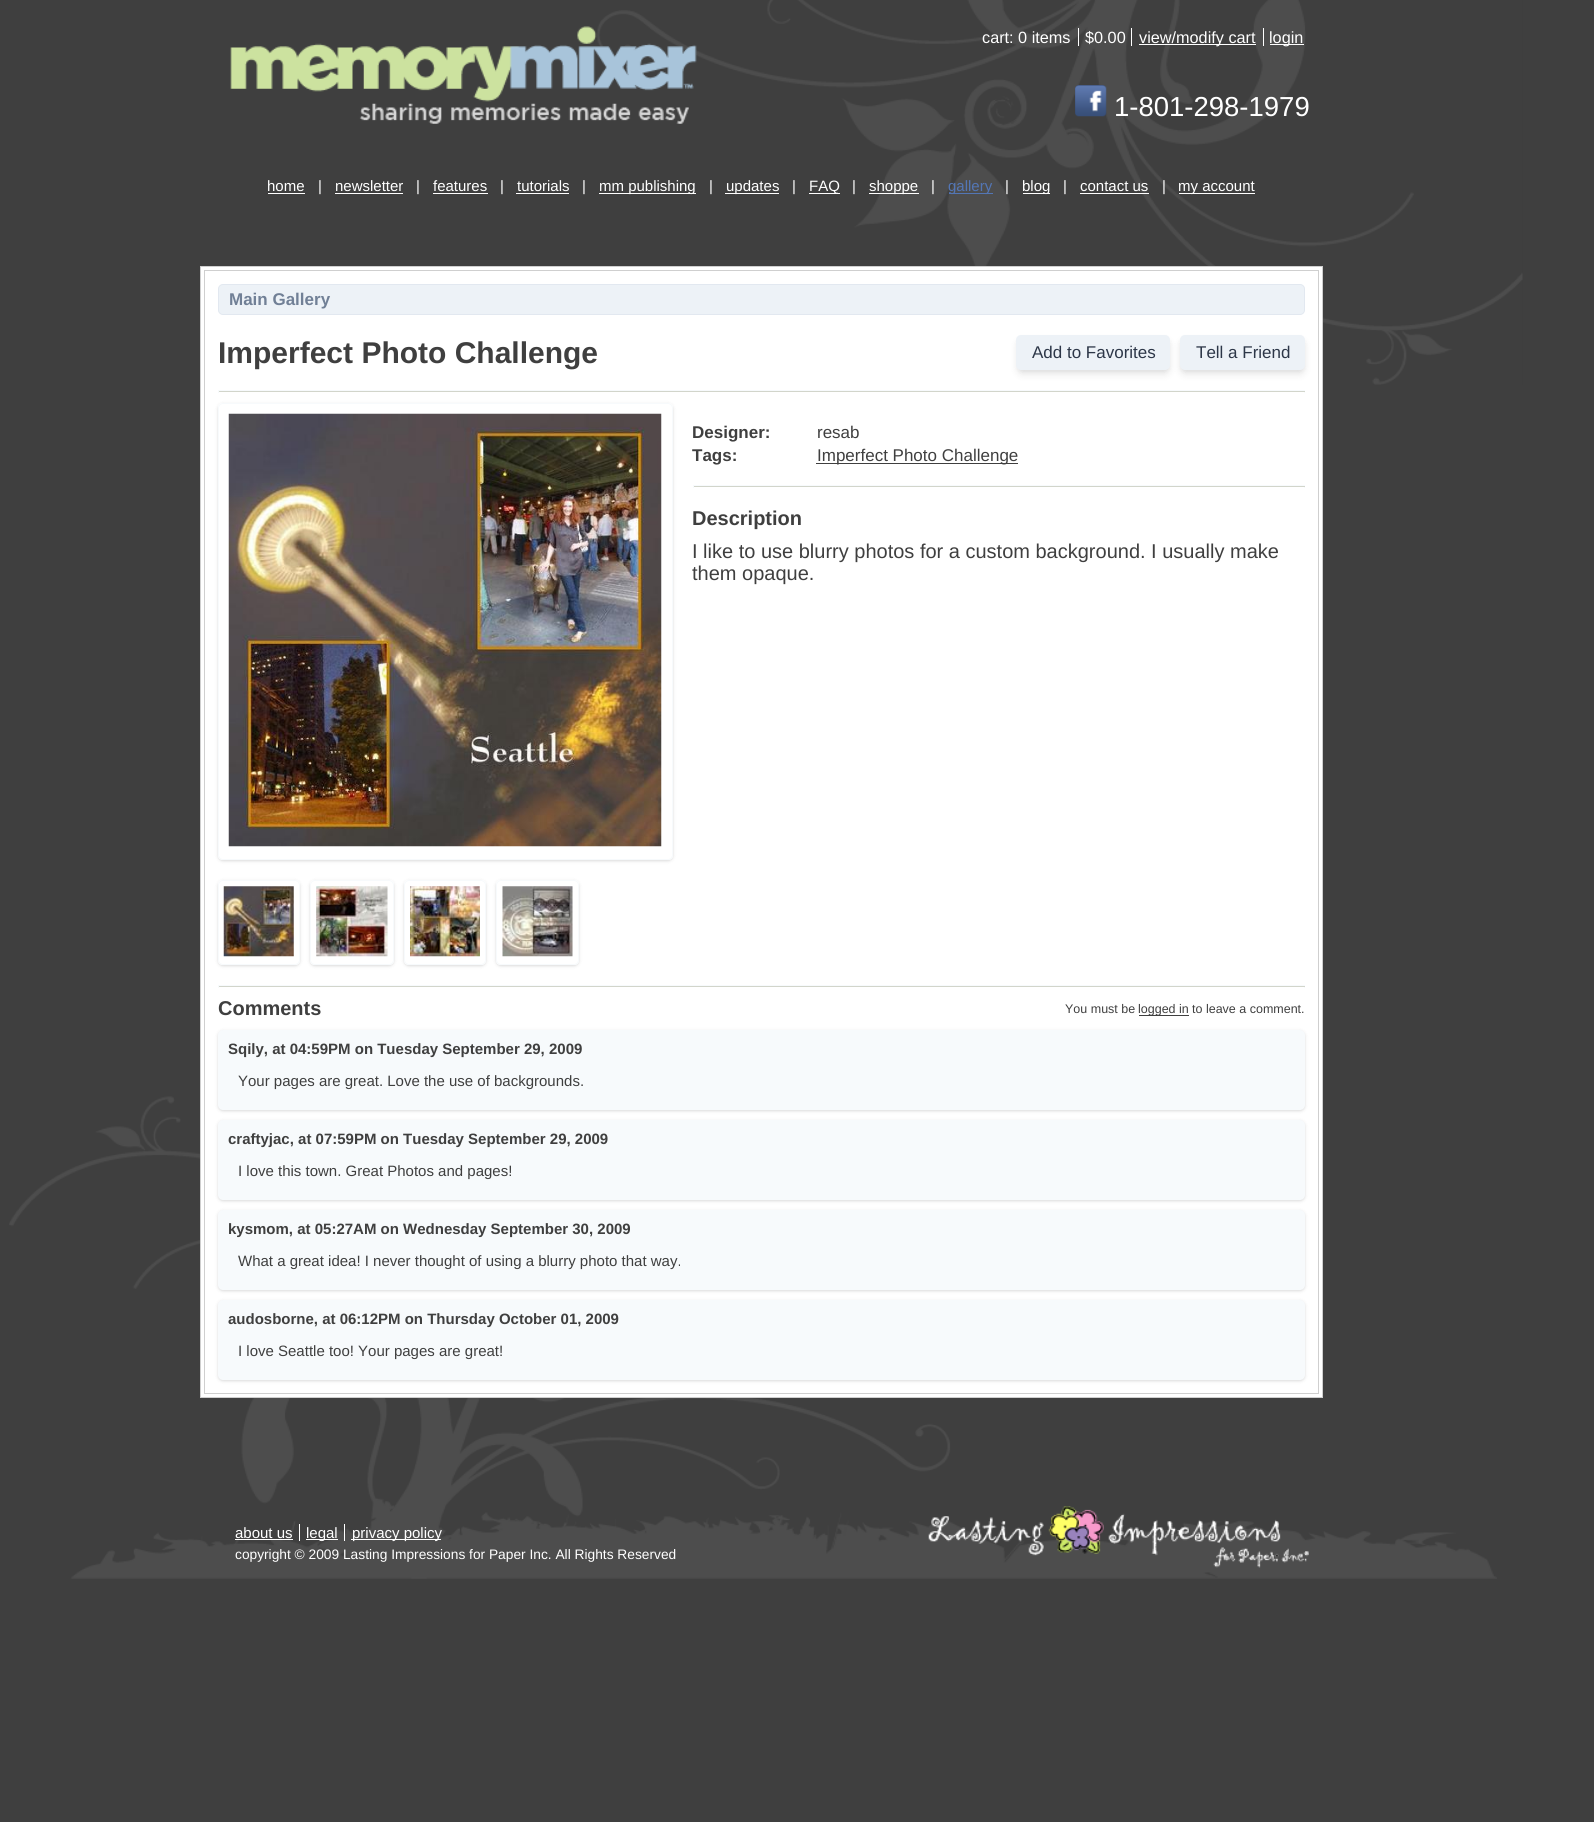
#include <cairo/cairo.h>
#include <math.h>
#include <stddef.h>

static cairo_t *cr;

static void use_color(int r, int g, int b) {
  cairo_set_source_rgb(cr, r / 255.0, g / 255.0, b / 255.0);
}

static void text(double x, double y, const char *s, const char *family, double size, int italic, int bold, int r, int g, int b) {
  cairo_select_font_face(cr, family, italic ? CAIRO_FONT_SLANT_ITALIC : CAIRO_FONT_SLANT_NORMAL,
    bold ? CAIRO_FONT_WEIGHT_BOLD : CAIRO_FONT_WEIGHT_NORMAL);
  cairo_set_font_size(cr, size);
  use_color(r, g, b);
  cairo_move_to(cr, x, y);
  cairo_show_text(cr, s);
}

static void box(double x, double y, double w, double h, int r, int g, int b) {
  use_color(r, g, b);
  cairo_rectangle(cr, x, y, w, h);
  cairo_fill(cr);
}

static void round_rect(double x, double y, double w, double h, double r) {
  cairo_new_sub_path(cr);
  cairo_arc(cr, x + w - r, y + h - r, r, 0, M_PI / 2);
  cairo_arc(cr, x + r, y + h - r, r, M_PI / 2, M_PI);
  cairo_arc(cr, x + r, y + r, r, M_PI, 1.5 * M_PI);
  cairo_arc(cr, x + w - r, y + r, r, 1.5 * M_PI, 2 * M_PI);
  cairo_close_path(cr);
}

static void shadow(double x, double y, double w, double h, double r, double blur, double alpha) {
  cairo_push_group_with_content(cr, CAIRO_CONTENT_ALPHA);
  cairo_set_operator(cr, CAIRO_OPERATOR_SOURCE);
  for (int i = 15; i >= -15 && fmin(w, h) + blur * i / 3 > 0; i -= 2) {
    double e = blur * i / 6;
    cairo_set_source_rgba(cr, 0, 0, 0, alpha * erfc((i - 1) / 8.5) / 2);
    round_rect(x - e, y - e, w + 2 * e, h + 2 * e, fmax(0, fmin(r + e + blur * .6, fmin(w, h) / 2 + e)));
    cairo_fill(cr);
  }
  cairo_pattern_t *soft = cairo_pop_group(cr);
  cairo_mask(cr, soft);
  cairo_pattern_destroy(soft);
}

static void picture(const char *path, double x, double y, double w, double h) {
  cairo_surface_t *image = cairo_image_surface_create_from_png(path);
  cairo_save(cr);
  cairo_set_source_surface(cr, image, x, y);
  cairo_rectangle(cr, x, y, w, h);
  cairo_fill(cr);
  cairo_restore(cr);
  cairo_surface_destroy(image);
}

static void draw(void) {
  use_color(63, 63, 63);
  cairo_paint(cr);
  picture("img_01.png", 597, 0, 926, 385);
  picture("img_02.png", 230, 26, 467, 98);
  box(1078, 28, 1, 18, 255, 255, 255);
  box(1131, 28, 1, 18, 255, 255, 255);
  box(1263, 28, 1, 18, 255, 255, 255);
  box(1139, 44, 117, 1, 255, 255, 255);
  box(1270, 44, 34, 1, 255, 255, 255);
  picture("img_03.png", 1075, 85, 32, 32);
  box(268, 193, 37, 1, 255, 255, 255);
  box(335, 193, 68, 1, 255, 255, 255);
  box(433, 193, 55, 1, 255, 255, 255);
  box(516, 193, 53, 1, 255, 255, 255);
  box(599, 193, 97, 1, 255, 255, 255);
  box(725, 193, 54, 1, 255, 255, 255);
  box(809, 193, 31, 1, 255, 255, 255);
  box(869, 193, 50, 1, 255, 255, 255);
  box(949, 193, 44, 1, 83, 118, 181);
  box(1023, 193, 27, 1, 255, 255, 255);
  box(1080, 193, 69, 1, 255, 255, 255);
  box(1179, 193, 76, 1, 255, 255, 255);
  picture("img_09.png", 9, 1096, 1488, 483);
  cairo_rectangle(cr, 200.5, 266.5, 1122, 1131);
  cairo_fill_preserve(cr);
  use_color(207, 207, 207);
  cairo_set_line_width(cr, 1);
  cairo_stroke(cr);
  cairo_rectangle(cr, 204.5, 270.5, 1114, 1123);
  cairo_stroke(cr);
  use_color(237, 242, 247);
  round_rect(218.5, 284.5, 1086, 30, 4.5);
  cairo_fill_preserve(cr);
  use_color(226, 232, 240);
  cairo_stroke(cr);
  use_color(0, 0, 0);
  shadow(1018, 339, 151, 32, 4, 2.5, 0.06);
  shadow(1018, 341, 151, 33, 4, 4, 0.1);
  use_color(237, 242, 247);
  round_rect(1016, 335, 154, 35, 5);
  cairo_fill(cr);
  use_color(0, 0, 0);
  shadow(1181, 339, 123, 32, 4, 2.5, 0.06);
  shadow(1181, 341, 123, 33, 4, 4, 0.1);
  use_color(237, 242, 247);
  round_rect(1180, 335, 125, 35, 5);
  cairo_fill(cr);
  box(218, 390, 1087, 1, 247, 250, 252);
  box(1304, 390, 1, 3, 247, 250, 252);
  box(218, 391, 1087, 1, 210, 213, 203);
  box(218, 390, 1, 3, 247, 250, 252);
  cairo_save(cr);
  cairo_set_fill_rule(cr, CAIRO_FILL_RULE_EVEN_ODD);
  cairo_new_path(cr);
  cairo_move_to(cr, 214, 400);
  cairo_line_to(cr, 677, 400);
  cairo_line_to(cr, 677, 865);
  cairo_line_to(cr, 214, 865);
  cairo_close_path(cr);
  cairo_move_to(cr, 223, 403);
  cairo_line_to(cr, 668, 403);
  cairo_curve_to(cr, 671, 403, 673, 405, 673, 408);
  cairo_line_to(cr, 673, 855);
  cairo_curve_to(cr, 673, 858, 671, 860, 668, 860);
  cairo_line_to(cr, 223, 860);
  cairo_curve_to(cr, 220, 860, 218, 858, 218, 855);
  cairo_line_to(cr, 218, 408);
  cairo_curve_to(cr, 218, 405, 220, 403, 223, 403);
  cairo_close_path(cr);
  cairo_clip(cr);
  use_color(0, 0, 0);
  shadow(218, 404, 455, 457, 5, 1, 0.06);
  cairo_restore(cr);
  cairo_save(cr);
  cairo_set_fill_rule(cr, CAIRO_FILL_RULE_EVEN_ODD);
  cairo_new_path(cr);
  cairo_move_to(cr, 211, 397);
  cairo_line_to(cr, 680, 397);
  cairo_line_to(cr, 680, 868);
  cairo_line_to(cr, 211, 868);
  cairo_close_path(cr);
  cairo_move_to(cr, 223, 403);
  cairo_line_to(cr, 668, 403);
  cairo_curve_to(cr, 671, 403, 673, 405, 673, 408);
  cairo_line_to(cr, 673, 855);
  cairo_curve_to(cr, 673, 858, 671, 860, 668, 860);
  cairo_line_to(cr, 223, 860);
  cairo_curve_to(cr, 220, 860, 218, 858, 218, 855);
  cairo_line_to(cr, 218, 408);
  cairo_curve_to(cr, 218, 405, 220, 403, 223, 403);
  cairo_close_path(cr);
  cairo_clip(cr);
  use_color(0, 0, 0);
  shadow(218, 404, 455, 457, 5, 2, 0.1);
  cairo_restore(cr);
  round_rect(218.5, 403.5, 454, 456, 4.5);
  cairo_stroke(cr);
  picture("img_04.png", 228, 413, 434, 434);
  cairo_save(cr);
  cairo_set_fill_rule(cr, CAIRO_FILL_RULE_EVEN_ODD);
  cairo_new_path(cr);
  cairo_move_to(cr, 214, 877);
  cairo_line_to(cr, 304, 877);
  cairo_line_to(cr, 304, 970);
  cairo_line_to(cr, 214, 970);
  cairo_close_path(cr);
  cairo_move_to(cr, 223, 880);
  cairo_line_to(cr, 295, 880);
  cairo_curve_to(cr, 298, 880, 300, 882, 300, 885);
  cairo_line_to(cr, 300, 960);
  cairo_curve_to(cr, 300, 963, 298, 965, 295, 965);
  cairo_line_to(cr, 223, 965);
  cairo_curve_to(cr, 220, 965, 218, 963, 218, 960);
  cairo_line_to(cr, 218, 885);
  cairo_curve_to(cr, 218, 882, 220, 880, 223, 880);
  cairo_close_path(cr);
  cairo_clip(cr);
  use_color(0, 0, 0);
  shadow(218, 881, 82, 85, 5, 1, 0.06);
  cairo_restore(cr);
  cairo_save(cr);
  cairo_set_fill_rule(cr, CAIRO_FILL_RULE_EVEN_ODD);
  cairo_new_path(cr);
  cairo_move_to(cr, 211, 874);
  cairo_line_to(cr, 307, 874);
  cairo_line_to(cr, 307, 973);
  cairo_line_to(cr, 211, 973);
  cairo_close_path(cr);
  cairo_move_to(cr, 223, 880);
  cairo_line_to(cr, 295, 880);
  cairo_curve_to(cr, 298, 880, 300, 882, 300, 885);
  cairo_line_to(cr, 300, 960);
  cairo_curve_to(cr, 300, 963, 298, 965, 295, 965);
  cairo_line_to(cr, 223, 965);
  cairo_curve_to(cr, 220, 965, 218, 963, 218, 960);
  cairo_line_to(cr, 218, 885);
  cairo_curve_to(cr, 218, 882, 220, 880, 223, 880);
  cairo_close_path(cr);
  cairo_clip(cr);
  use_color(0, 0, 0);
  shadow(218, 881, 82, 85, 5, 2, 0.1);
  cairo_restore(cr);
  round_rect(218.5, 880.5, 81, 84, 4.5);
  cairo_stroke(cr);
  picture("img_05.png", 223, 886, 71, 71);
  cairo_save(cr);
  cairo_set_fill_rule(cr, CAIRO_FILL_RULE_EVEN_ODD);
  cairo_new_path(cr);
  cairo_move_to(cr, 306, 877);
  cairo_line_to(cr, 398, 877);
  cairo_line_to(cr, 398, 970);
  cairo_line_to(cr, 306, 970);
  cairo_close_path(cr);
  cairo_move_to(cr, 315, 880);
  cairo_line_to(cr, 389, 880);
  cairo_curve_to(cr, 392, 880, 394, 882, 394, 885);
  cairo_line_to(cr, 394, 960);
  cairo_curve_to(cr, 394, 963, 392, 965, 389, 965);
  cairo_line_to(cr, 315, 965);
  cairo_curve_to(cr, 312, 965, 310, 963, 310, 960);
  cairo_line_to(cr, 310, 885);
  cairo_curve_to(cr, 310, 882, 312, 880, 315, 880);
  cairo_close_path(cr);
  cairo_clip(cr);
  use_color(0, 0, 0);
  shadow(310, 881, 84, 85, 5, 1, 0.06);
  cairo_restore(cr);
  cairo_save(cr);
  cairo_set_fill_rule(cr, CAIRO_FILL_RULE_EVEN_ODD);
  cairo_new_path(cr);
  cairo_move_to(cr, 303, 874);
  cairo_line_to(cr, 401, 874);
  cairo_line_to(cr, 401, 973);
  cairo_line_to(cr, 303, 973);
  cairo_close_path(cr);
  cairo_move_to(cr, 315, 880);
  cairo_line_to(cr, 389, 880);
  cairo_curve_to(cr, 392, 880, 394, 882, 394, 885);
  cairo_line_to(cr, 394, 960);
  cairo_curve_to(cr, 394, 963, 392, 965, 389, 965);
  cairo_line_to(cr, 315, 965);
  cairo_curve_to(cr, 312, 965, 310, 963, 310, 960);
  cairo_line_to(cr, 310, 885);
  cairo_curve_to(cr, 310, 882, 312, 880, 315, 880);
  cairo_close_path(cr);
  cairo_clip(cr);
  use_color(0, 0, 0);
  shadow(310, 881, 84, 85, 5, 2, 0.1);
  cairo_restore(cr);
  round_rect(310.5, 880.5, 83, 84, 4.5);
  cairo_stroke(cr);
  picture("img_06.png", 316, 886, 72, 71);
  cairo_save(cr);
  cairo_set_fill_rule(cr, CAIRO_FILL_RULE_EVEN_ODD);
  cairo_new_path(cr);
  cairo_move_to(cr, 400, 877);
  cairo_line_to(cr, 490, 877);
  cairo_line_to(cr, 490, 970);
  cairo_line_to(cr, 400, 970);
  cairo_close_path(cr);
  cairo_move_to(cr, 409, 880);
  cairo_line_to(cr, 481, 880);
  cairo_curve_to(cr, 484, 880, 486, 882, 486, 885);
  cairo_line_to(cr, 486, 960);
  cairo_curve_to(cr, 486, 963, 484, 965, 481, 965);
  cairo_line_to(cr, 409, 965);
  cairo_curve_to(cr, 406, 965, 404, 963, 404, 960);
  cairo_line_to(cr, 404, 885);
  cairo_curve_to(cr, 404, 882, 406, 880, 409, 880);
  cairo_close_path(cr);
  cairo_clip(cr);
  use_color(0, 0, 0);
  shadow(404, 881, 82, 85, 5, 1, 0.06);
  cairo_restore(cr);
  cairo_save(cr);
  cairo_set_fill_rule(cr, CAIRO_FILL_RULE_EVEN_ODD);
  cairo_new_path(cr);
  cairo_move_to(cr, 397, 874);
  cairo_line_to(cr, 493, 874);
  cairo_line_to(cr, 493, 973);
  cairo_line_to(cr, 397, 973);
  cairo_close_path(cr);
  cairo_move_to(cr, 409, 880);
  cairo_line_to(cr, 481, 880);
  cairo_curve_to(cr, 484, 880, 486, 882, 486, 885);
  cairo_line_to(cr, 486, 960);
  cairo_curve_to(cr, 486, 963, 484, 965, 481, 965);
  cairo_line_to(cr, 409, 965);
  cairo_curve_to(cr, 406, 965, 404, 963, 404, 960);
  cairo_line_to(cr, 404, 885);
  cairo_curve_to(cr, 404, 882, 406, 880, 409, 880);
  cairo_close_path(cr);
  cairo_clip(cr);
  use_color(0, 0, 0);
  shadow(404, 881, 82, 85, 5, 2, 0.1);
  cairo_restore(cr);
  round_rect(404.5, 880.5, 81, 84, 4.5);
  cairo_stroke(cr);
  picture("img_07.png", 410, 886, 70, 71);
  cairo_save(cr);
  cairo_set_fill_rule(cr, CAIRO_FILL_RULE_EVEN_ODD);
  cairo_new_path(cr);
  cairo_move_to(cr, 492, 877);
  cairo_line_to(cr, 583, 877);
  cairo_line_to(cr, 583, 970);
  cairo_line_to(cr, 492, 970);
  cairo_close_path(cr);
  cairo_move_to(cr, 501, 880);
  cairo_line_to(cr, 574, 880);
  cairo_curve_to(cr, 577, 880, 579, 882, 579, 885);
  cairo_line_to(cr, 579, 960);
  cairo_curve_to(cr, 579, 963, 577, 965, 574, 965);
  cairo_line_to(cr, 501, 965);
  cairo_curve_to(cr, 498, 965, 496, 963, 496, 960);
  cairo_line_to(cr, 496, 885);
  cairo_curve_to(cr, 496, 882, 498, 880, 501, 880);
  cairo_close_path(cr);
  cairo_clip(cr);
  use_color(0, 0, 0);
  shadow(496, 881, 83, 85, 5, 1, 0.06);
  cairo_restore(cr);
  cairo_save(cr);
  cairo_set_fill_rule(cr, CAIRO_FILL_RULE_EVEN_ODD);
  cairo_new_path(cr);
  cairo_move_to(cr, 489, 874);
  cairo_line_to(cr, 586, 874);
  cairo_line_to(cr, 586, 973);
  cairo_line_to(cr, 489, 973);
  cairo_close_path(cr);
  cairo_move_to(cr, 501, 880);
  cairo_line_to(cr, 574, 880);
  cairo_curve_to(cr, 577, 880, 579, 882, 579, 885);
  cairo_line_to(cr, 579, 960);
  cairo_curve_to(cr, 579, 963, 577, 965, 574, 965);
  cairo_line_to(cr, 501, 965);
  cairo_curve_to(cr, 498, 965, 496, 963, 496, 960);
  cairo_line_to(cr, 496, 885);
  cairo_curve_to(cr, 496, 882, 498, 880, 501, 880);
  cairo_close_path(cr);
  cairo_clip(cr);
  use_color(0, 0, 0);
  shadow(496, 881, 83, 85, 5, 2, 0.1);
  cairo_restore(cr);
  round_rect(496.5, 880.5, 82, 84, 4.5);
  cairo_stroke(cr);
  picture("img_08.png", 502, 886, 71, 71);
  box(816, 463, 202, 1, 63, 63, 63);
  box(693, 485, 612, 1, 247, 250, 252);
  box(1304, 485, 1, 3, 247, 250, 252);
  box(693, 486, 612, 1, 210, 213, 203);
  box(693, 485, 1, 3, 247, 250, 252);
  box(218, 985, 1087, 1, 247, 250, 252);
  box(1304, 985, 1, 3, 247, 250, 252);
  box(218, 986, 1087, 1, 210, 213, 203);
  box(218, 985, 1, 3, 247, 250, 252);
  box(1139, 1015, 50, 1, 63, 63, 63);
  use_color(0, 0, 0);
  shadow(218, 1031, 1087, 80, 5, 1, 0.06);
  shadow(218, 1031, 1087, 80, 5, 2, 0.1);
  use_color(247, 250, 252);
  round_rect(218, 1030, 1087, 80, 5);
  cairo_fill(cr);
  use_color(0, 0, 0);
  shadow(218, 1121, 1087, 80, 5, 1, 0.06);
  shadow(218, 1121, 1087, 80, 5, 2, 0.1);
  use_color(247, 250, 252);
  round_rect(218, 1120, 1087, 80, 5);
  cairo_fill(cr);
  use_color(0, 0, 0);
  shadow(218, 1211, 1087, 80, 5, 1, 0.06);
  shadow(218, 1211, 1087, 80, 5, 2, 0.1);
  use_color(247, 250, 252);
  round_rect(218, 1210, 1087, 80, 5);
  cairo_fill(cr);
  use_color(0, 0, 0);
  shadow(218, 1301, 1087, 80, 5, 1, 0.06);
  shadow(218, 1301, 1087, 80, 5, 2, 0.1);
  use_color(247, 250, 252);
  round_rect(218, 1300, 1087, 80, 5);
  cairo_fill(cr);
  box(299, 1524, 1, 17, 255, 255, 255);
  box(235, 1539, 58, 1, 255, 255, 255);
  box(344, 1524, 1, 17, 255, 255, 255);
  box(306, 1539, 32, 1, 255, 255, 255);
  box(351, 1539, 90, 1, 255, 255, 255);
  picture("img_10.png", 928, 1506, 381, 62);
  text(982, 43, "cart: 0 items", "Liberation Sans", 16.25, 0, 0, 255, 255, 255);
  text(1085, 43, "$0.00", "Liberation Sans", 16.25, 0, 0, 255, 255, 255);
  text(1139, 43, "view/modify cart", "Liberation Sans", 16.25, 0, 0, 255, 255, 255);
  text(1269, 43, "login", "Liberation Sans", 16.25, 0, 0, 255, 255, 255);
  text(1114, 116, "1-801-298-1979", "Liberation Sans", 27.5, 0, 0, 255, 255, 255);
  text(267, 191, "home", "Liberation Sans", 15, 0, 0, 255, 255, 255);
  text(318, 191, "|", "Liberation Sans", 15, 0, 0, 255, 255, 255);
  text(335, 191, "newsletter", "Liberation Sans", 15, 0, 0, 255, 255, 255);
  text(416, 191, "|", "Liberation Sans", 15, 0, 0, 255, 255, 255);
  text(433, 191, "features", "Liberation Sans", 15, 0, 0, 255, 255, 255);
  text(500, 191, "|", "Liberation Sans", 15, 0, 0, 255, 255, 255);
  text(517, 191, "tutorials", "Liberation Sans", 15, 0, 0, 255, 255, 255);
  text(582, 191, "|", "Liberation Sans", 15, 0, 0, 255, 255, 255);
  text(599, 191, "mm publishing", "Liberation Sans", 15, 0, 0, 255, 255, 255);
  text(709, 191, "|", "Liberation Sans", 15, 0, 0, 255, 255, 255);
  text(726, 191, "updates", "Liberation Sans", 15, 0, 0, 255, 255, 255);
  text(792, 191, "|", "Liberation Sans", 15, 0, 0, 255, 255, 255);
  text(809, 191, "FAQ", "Liberation Sans", 15, 0, 0, 255, 255, 255);
  text(852, 191, "|", "Liberation Sans", 15, 0, 0, 255, 255, 255);
  text(869, 191, "shoppe", "Liberation Sans", 15, 0, 0, 255, 255, 255);
  text(931, 191, "|", "Liberation Sans", 15, 0, 0, 255, 255, 255);
  text(948, 191, "gallery", "Liberation Sans", 15, 0, 0, 83, 118, 181);
  text(1005, 191, "|", "Liberation Sans", 15, 0, 0, 255, 255, 255);
  text(1022, 191, "blog", "Liberation Sans", 15, 0, 0, 255, 255, 255);
  text(1063, 191, "|", "Liberation Sans", 15, 0, 0, 255, 255, 255);
  text(1080, 191, "contact us", "Liberation Sans", 15, 0, 0, 255, 255, 255);
  text(1162, 191, "|", "Liberation Sans", 15, 0, 0, 255, 255, 255);
  text(1178, 191, "my account", "Liberation Sans", 15, 0, 0, 255, 255, 255);
  text(229, 305, "Main Gallery", "Liberation Sans", 17, 0, 1, 113, 128, 150);
  text(218, 363, "Imperfect Photo Challenge", "Liberation Sans", 30, 0, 1, 63, 63, 63);
  text(1032, 358, "Add to Favorites", "Liberation Sans", 17, 0, 0, 45, 55, 72);
  text(1196, 358, "Tell a Friend", "Liberation Sans", 17, 0, 0, 45, 55, 72);
  text(692, 438, "Designer:", "Liberation Sans", 17, 0, 1, 63, 63, 63);
  text(817, 438, "resab", "Liberation Sans", 17, 0, 0, 63, 63, 63);
  text(692, 461, "Tags:", "Liberation Sans", 17, 0, 1, 63, 63, 63);
  text(817, 461, "Imperfect Photo Challenge", "Liberation Sans", 17, 0, 0, 63, 63, 63);
  text(692, 525, "Description", "Liberation Sans", 20, 0, 1, 63, 63, 63);
  text(692, 558, "I like to use blurry photos for a custom background. I usually make", "Liberation Sans", 20, 0, 0, 63, 63, 63);
  text(692, 580, "them opaque.", "Liberation Sans", 20, 0, 0, 63, 63, 63);
  text(218, 1015, "Comments", "Liberation Sans", 20, 0, 1, 63, 63, 63);
  text(1065, 1013, "You must be", "Liberation Sans", 12.5, 0, 0, 63, 63, 63);
  text(1138, 1013, "logged in", "Liberation Sans", 12.5, 0, 0, 63, 63, 63);
  text(1192, 1013, "to leave a comment.", "Liberation Sans", 12.5, 0, 0, 63, 63, 63);
  text(228, 1054, "Sqily, at 04:59PM on Tuesday September 29, 2009", "Liberation Sans", 15, 0, 1, 63, 63, 63);
  text(238, 1086, "Your pages are great. Love the use of backgrounds.", "Liberation Sans", 15, 0, 0, 63, 63, 63);
  text(228, 1144, "craftyjac, at 07:59PM on Tuesday September 29, 2009", "Liberation Sans", 15, 0, 1, 63, 63, 63);
  text(238, 1176, "I love this town. Great Photos and pages!", "Liberation Sans", 15, 0, 0, 63, 63, 63);
  text(228, 1234, "kysmom, at 05:27AM on Wednesday September 30, 2009", "Liberation Sans", 15, 0, 1, 63, 63, 63);
  text(238, 1266, "What a great idea! I never thought of using a blurry photo that way.", "Liberation Sans", 15, 0, 0, 63, 63, 63);
  text(228, 1324, "audosborne, at 06:12PM on Thursday October 01, 2009", "Liberation Sans", 15, 0, 1, 63, 63, 63);
  text(238, 1356, "I love Seattle too! Your pages are great!", "Liberation Sans", 15, 0, 0, 63, 63, 63);
  text(235, 1538, "about us", "Liberation Sans", 15, 0, 0, 255, 255, 255);
  text(306, 1538, "legal", "Liberation Sans", 15, 0, 0, 255, 255, 255);
  text(352, 1538, "privacy policy", "Liberation Sans", 15, 0, 0, 255, 255, 255);
  text(235, 1559, "copyright © 2009 Lasting Impressions for Paper Inc. All Rights Reserved", "Liberation Sans", 13.75, 0, 0, 255, 255, 255);
}

int main(void) {
  cairo_surface_t *surface = cairo_image_surface_create(CAIRO_FORMAT_RGB24, 1594, 1822);
  cr = cairo_create(surface);
  cairo_font_options_t *options = cairo_font_options_create();
  cairo_font_options_set_hint_metrics(options, CAIRO_HINT_METRICS_OFF);
  cairo_font_options_set_hint_style(options, CAIRO_HINT_STYLE_NONE);
  cairo_set_font_options(cr, options);
  cairo_set_miter_limit(cr, 4);
  draw();
  cairo_surface_write_to_png(surface, "out.png");
  cairo_font_options_destroy(options);
  cairo_destroy(cr);
  cairo_surface_destroy(surface);
  return 0;
}
